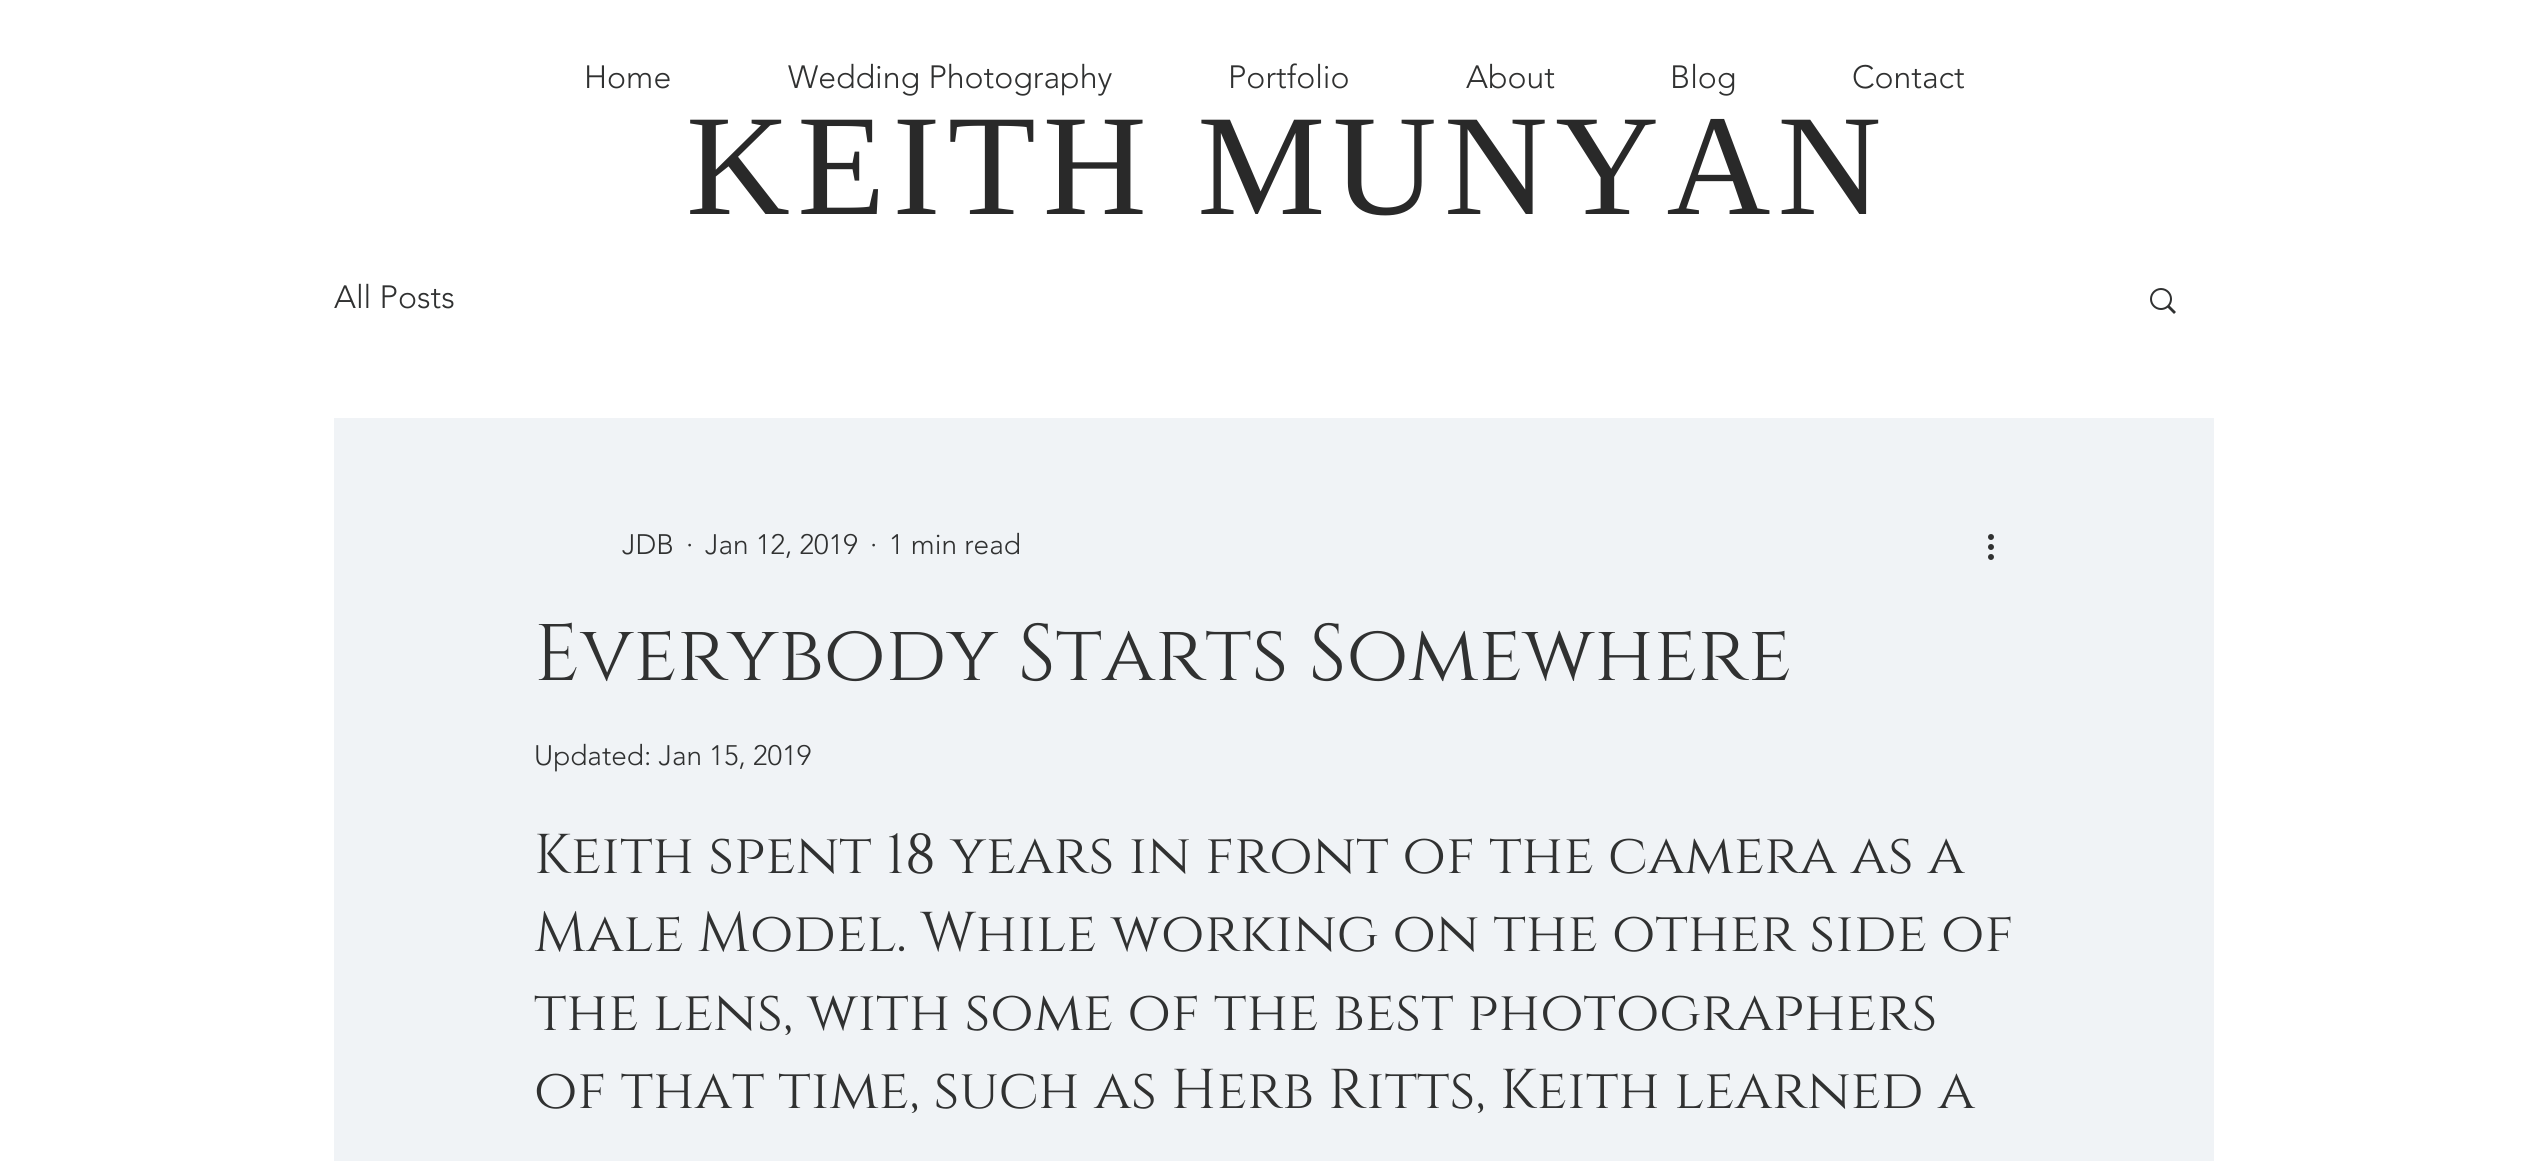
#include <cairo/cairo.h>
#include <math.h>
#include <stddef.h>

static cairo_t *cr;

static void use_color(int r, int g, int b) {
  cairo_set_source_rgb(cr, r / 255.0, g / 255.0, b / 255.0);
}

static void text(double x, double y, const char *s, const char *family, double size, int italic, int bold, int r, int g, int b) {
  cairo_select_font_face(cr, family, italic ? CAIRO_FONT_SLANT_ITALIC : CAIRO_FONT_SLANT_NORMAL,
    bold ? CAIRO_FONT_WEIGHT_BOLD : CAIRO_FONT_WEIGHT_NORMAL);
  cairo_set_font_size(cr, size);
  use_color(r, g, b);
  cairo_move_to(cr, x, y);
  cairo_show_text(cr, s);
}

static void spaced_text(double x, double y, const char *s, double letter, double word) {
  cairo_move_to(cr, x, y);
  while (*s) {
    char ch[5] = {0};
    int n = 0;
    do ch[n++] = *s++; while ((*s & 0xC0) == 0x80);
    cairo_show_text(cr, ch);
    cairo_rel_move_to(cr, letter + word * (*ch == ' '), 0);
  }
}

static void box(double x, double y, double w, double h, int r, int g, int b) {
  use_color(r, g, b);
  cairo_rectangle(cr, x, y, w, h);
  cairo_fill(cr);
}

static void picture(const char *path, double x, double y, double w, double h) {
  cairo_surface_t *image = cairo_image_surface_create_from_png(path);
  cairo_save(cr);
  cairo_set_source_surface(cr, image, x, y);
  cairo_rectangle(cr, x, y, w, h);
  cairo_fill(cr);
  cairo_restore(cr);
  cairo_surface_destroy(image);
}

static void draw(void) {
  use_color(255, 255, 255);
  cairo_paint(cr);
  picture("img_01.png", 2150, 288, 26, 26);
  box(334, 418, 1880, 743, 240, 243, 246);
  picture("img_02.png", 1988, 534, 6, 26);
  text(584, 88, "Home", "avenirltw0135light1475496 Light", 32, 0, 0, 48, 49, 49);
  text(788, 88, "Wedding Photography", "avenirltw0135light1475496 Light", 32, 0, 0, 48, 49, 49);
  text(1228, 88, "Portfolio", "avenirltw0135light1475496 Light", 32, 0, 0, 48, 49, 49);
  text(1466, 88, "About", "avenirltw0135light1475496 Light", 32, 0, 0, 48, 49, 49);
  text(1670, 88, "Blog", "avenirltw0135light1475496 Light", 32, 0, 0, 48, 49, 49);
  text(1852, 88, "Contact", "avenirltw0135light1475496 Light", 32, 0, 0, 48, 49, 49);
  cairo_select_font_face(cr, "Liberation Serif", CAIRO_FONT_SLANT_NORMAL, CAIRO_FONT_WEIGHT_NORMAL);
  cairo_set_font_size(cr, 144);
  use_color(41, 41, 41);
  spaced_text(686, 214, "KEITH MUNYAN", 7.25, 0);
  text(334, 308, "All Posts", "avenirltw0135light1475496 Light", 32, 0, 0, 48, 49, 49);
  text(622, 554, "JDB", "avenirltw0135light1475496 Light", 28, 0, 0, 48, 49, 49);
  text(686, 554, "·", "avenirltw0135light1475496 Light", 28, 0, 0, 48, 49, 49);
  text(705, 554, "Jan 12, 2019", "avenirltw0135light1475496 Light", 28, 0, 0, 48, 49, 49);
  text(870, 554, "·", "avenirltw0135light1475496 Light", 28, 0, 0, 48, 49, 49);
  text(889, 554, "1 min read", "avenirltw0135light1475496 Light", 28, 0, 0, 48, 49, 49);
  text(534, 680, "Everybody Starts Somewhere", "Cinzel", 80, 0, 0, 48, 49, 49);
  text(534, 765, "Updated: Jan 15, 2019", "avenirltw0135light1475496 Light", 28, 0, 0, 48, 49, 49);
  text(534, 873, "Keith spent 18 years in front of the camera as a", "Cinzel", 56, 0, 0, 48, 49, 49);
  text(534, 951, "Male Model. While working on the other side of", "Cinzel", 56, 0, 0, 48, 49, 49);
  text(534, 1030, "the lens, with some of the best photographers", "Cinzel", 56, 0, 0, 48, 49, 49);
  text(534, 1108, "of that time, such as Herb Ritts, Keith learned a", "Cinzel", 56, 0, 0, 48, 49, 49);
}

int main(void) {
  cairo_surface_t *surface = cairo_image_surface_create(CAIRO_FORMAT_RGB24, 2547, 1161);
  cr = cairo_create(surface);
  cairo_font_options_t *options = cairo_font_options_create();
  cairo_font_options_set_hint_metrics(options, CAIRO_HINT_METRICS_OFF);
  cairo_font_options_set_hint_style(options, CAIRO_HINT_STYLE_NONE);
  cairo_set_font_options(cr, options);
  cairo_set_miter_limit(cr, 4);
  draw();
  cairo_surface_write_to_png(surface, "out.png");
  cairo_font_options_destroy(options);
  cairo_destroy(cr);
  cairo_surface_destroy(surface);
  return 0;
}
